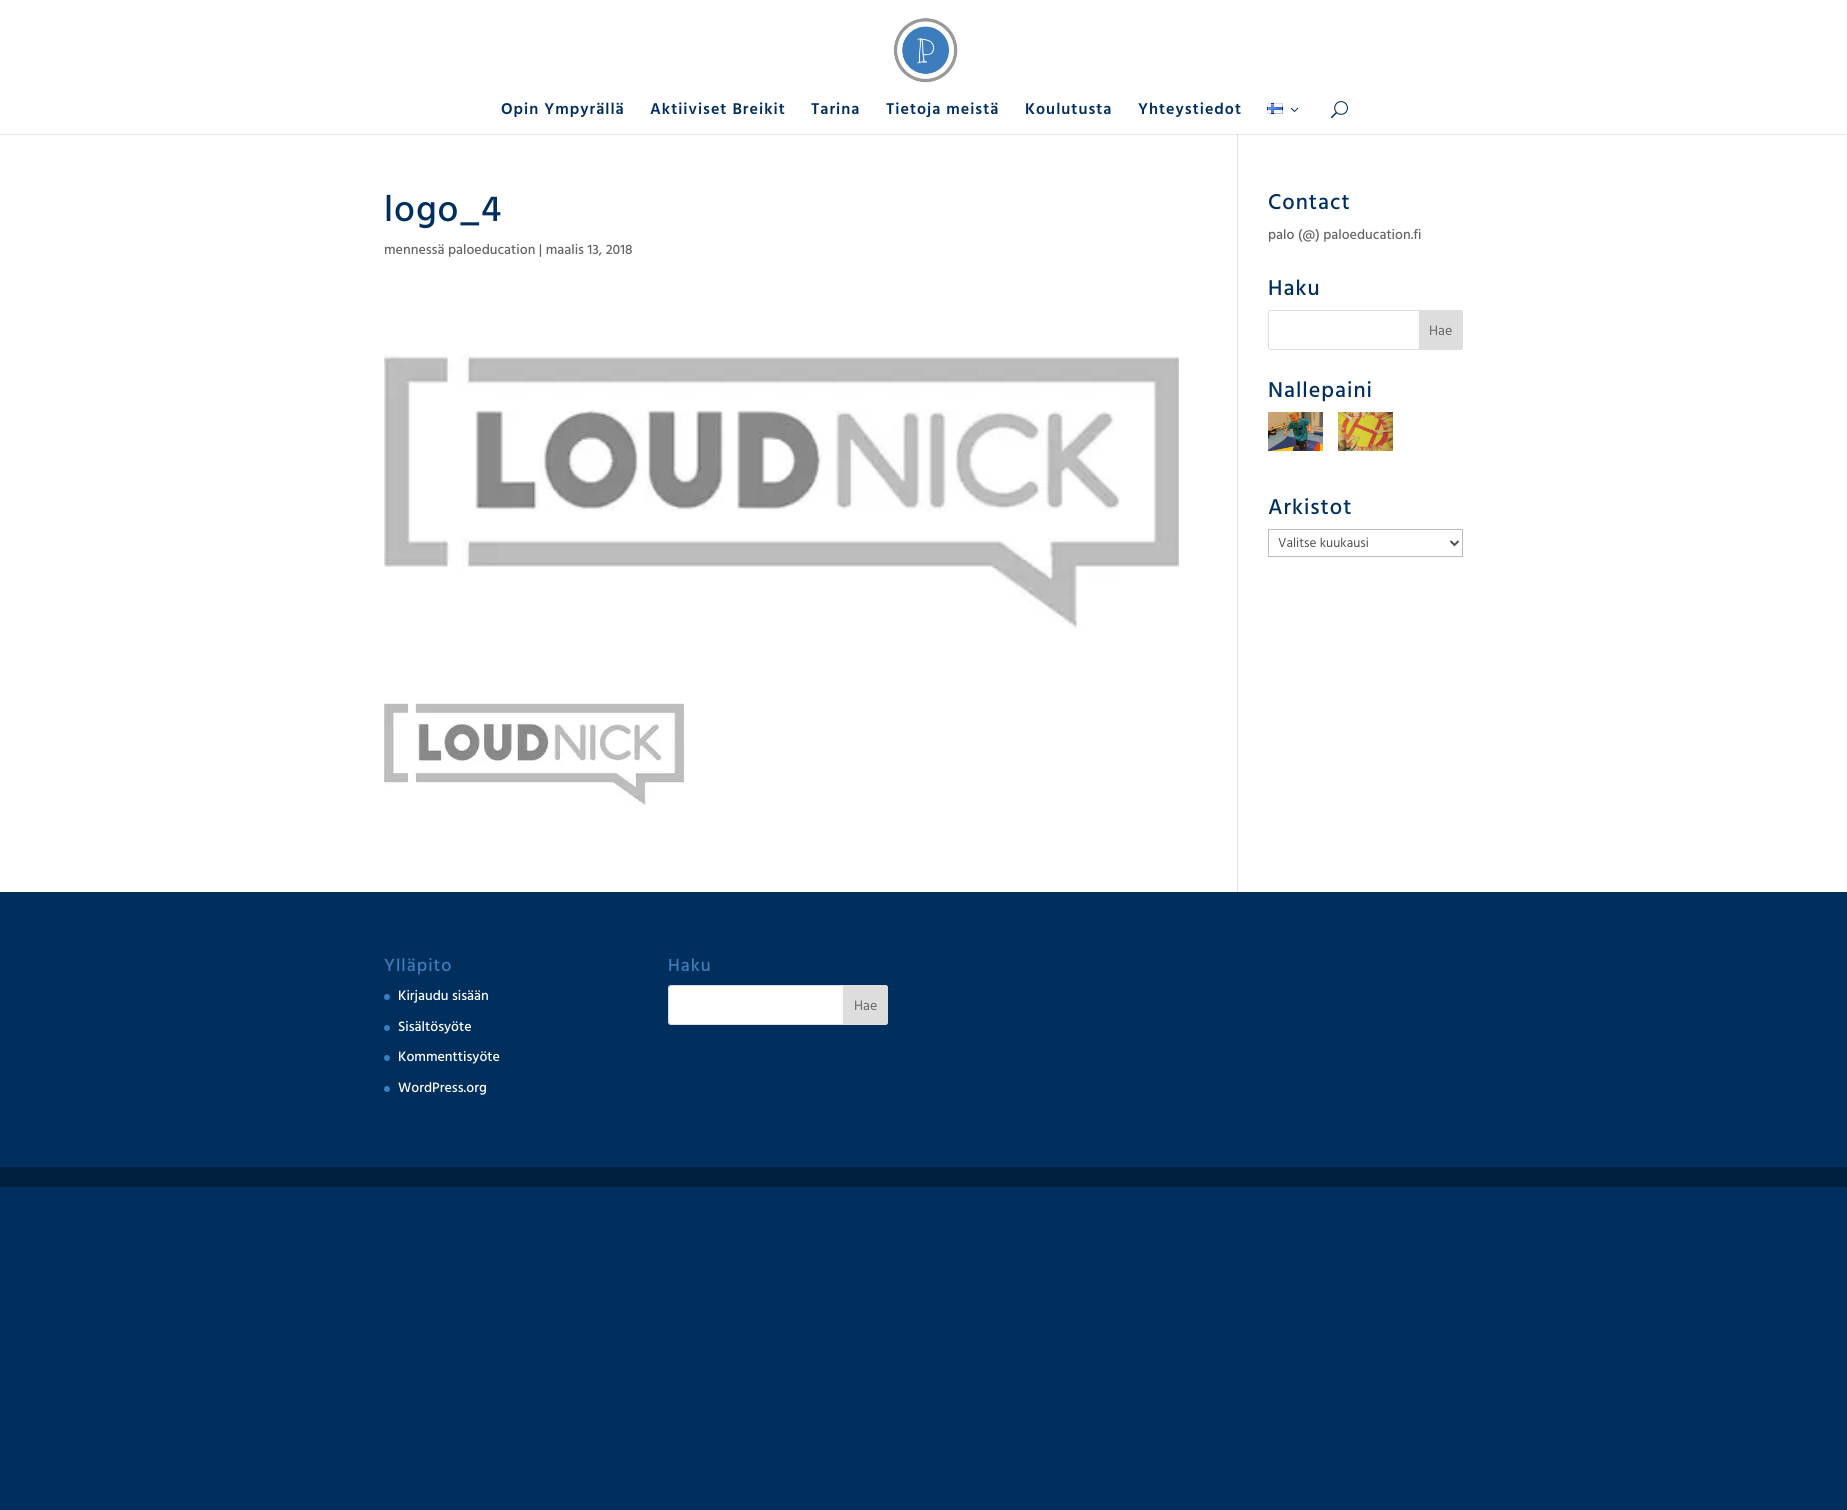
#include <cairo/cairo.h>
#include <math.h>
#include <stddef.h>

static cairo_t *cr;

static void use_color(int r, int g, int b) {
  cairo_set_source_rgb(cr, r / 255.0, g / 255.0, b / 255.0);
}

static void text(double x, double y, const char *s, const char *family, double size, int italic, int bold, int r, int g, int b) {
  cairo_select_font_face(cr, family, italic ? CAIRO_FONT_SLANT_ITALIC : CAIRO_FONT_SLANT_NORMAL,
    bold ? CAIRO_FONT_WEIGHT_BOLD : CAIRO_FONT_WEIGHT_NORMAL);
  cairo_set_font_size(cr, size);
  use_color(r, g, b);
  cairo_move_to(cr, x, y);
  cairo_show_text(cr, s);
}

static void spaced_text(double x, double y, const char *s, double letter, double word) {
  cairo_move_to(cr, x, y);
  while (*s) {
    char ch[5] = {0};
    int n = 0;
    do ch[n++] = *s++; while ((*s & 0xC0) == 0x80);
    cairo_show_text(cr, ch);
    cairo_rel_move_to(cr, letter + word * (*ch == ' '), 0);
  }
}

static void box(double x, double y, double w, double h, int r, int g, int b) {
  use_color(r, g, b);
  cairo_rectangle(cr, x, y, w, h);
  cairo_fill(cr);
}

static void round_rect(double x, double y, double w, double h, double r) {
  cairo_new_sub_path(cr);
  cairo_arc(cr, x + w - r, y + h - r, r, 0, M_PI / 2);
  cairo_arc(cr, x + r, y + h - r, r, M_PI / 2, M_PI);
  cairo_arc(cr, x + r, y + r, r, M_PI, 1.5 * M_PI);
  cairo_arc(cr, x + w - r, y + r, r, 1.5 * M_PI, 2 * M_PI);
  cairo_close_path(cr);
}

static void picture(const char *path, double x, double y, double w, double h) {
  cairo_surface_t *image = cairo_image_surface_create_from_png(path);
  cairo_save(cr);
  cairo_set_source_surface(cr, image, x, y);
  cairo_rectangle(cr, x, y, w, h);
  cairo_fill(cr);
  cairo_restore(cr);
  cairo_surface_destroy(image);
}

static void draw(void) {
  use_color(0, 47, 94);
  cairo_paint(cr);
  box(0, 0, 1847, 134, 255, 255, 255);
  picture("img_01.png", 893, 18, 65, 65);
  picture("img_02.png", 1267, 103, 16, 11);
  picture("img_03.png", 1290, 107, 9, 5);
  picture("img_04.png", 1331, 101, 17, 18);
  box(0, 135, 1847, 757, 255, 255, 255);
  box(0, 134, 1847, 1, 230, 230, 230);
  box(1237, 134, 1, 758, 226, 226, 226);
  box(1237, 134, 1, 1, 203, 203, 203);
  picture("img_05.png", 384, 354, 795, 275);
  picture("img_06.png", 384, 703, 300, 103);
  round_rect(1268.5, 310.5, 194, 39, 2.5);
  use_color(221, 221, 221);
  cairo_set_line_width(cr, 1);
  cairo_stroke(cr);
  cairo_new_path(cr);
  cairo_move_to(cr, 1419.5, 310.5);
  cairo_line_to(cr, 1460, 310.5);
  cairo_curve_to(cr, 1461.5, 310.5, 1462.5, 311.5, 1462.5, 313);
  cairo_line_to(cr, 1462.5, 347);
  cairo_curve_to(cr, 1462.5, 348.5, 1461.5, 349.5, 1460, 349.5);
  cairo_line_to(cr, 1419.5, 349.5);
  cairo_close_path(cr);
  cairo_fill_preserve(cr);
  cairo_stroke(cr);
  picture("img_07.png", 1268, 412, 55, 39);
  picture("img_08.png", 1338, 412, 55, 39);
  cairo_rectangle(cr, 1268.5, 529.5, 194, 27);
  use_color(187, 187, 187);
  cairo_stroke(cr);
  cairo_new_path(cr);
  cairo_move_to(cr, 1450.5, 541);
  cairo_line_to(cr, 1454.5, 545);
  cairo_line_to(cr, 1458.5, 541);
  use_color(78, 78, 78);
  cairo_set_line_width(cr, 2);
  cairo_stroke(cr);
  use_color(61, 125, 189);
  cairo_arc(cr, 387, 997, 3, 0, 2 * M_PI);
  cairo_fill(cr);
  cairo_arc(cr, 387, 1028, 3, 0, 2 * M_PI);
  cairo_fill(cr);
  cairo_arc(cr, 387, 1058, 3, 0, 2 * M_PI);
  cairo_fill(cr);
  cairo_arc(cr, 387, 1089, 3, 0, 2 * M_PI);
  cairo_fill(cr);
  use_color(255, 255, 255);
  round_rect(668.5, 985.5, 219, 39, 2.5);
  cairo_fill_preserve(cr);
  use_color(221, 221, 221);
  cairo_set_line_width(cr, 1);
  cairo_stroke(cr);
  cairo_new_path(cr);
  cairo_move_to(cr, 843.5, 985.5);
  cairo_line_to(cr, 885, 985.5);
  cairo_curve_to(cr, 886.5, 985.5, 887.5, 986.5, 887.5, 988);
  cairo_line_to(cr, 887.5, 1022);
  cairo_curve_to(cr, 887.5, 1023.5, 886.5, 1024.5, 885, 1024.5);
  cairo_line_to(cr, 843.5, 1024.5);
  cairo_close_path(cr);
  cairo_fill_preserve(cr);
  cairo_stroke(cr);
  box(0, 1167, 1847, 20, 0, 32, 64);
  cairo_select_font_face(cr, "Hind Madurai SemiBold", CAIRO_FONT_SLANT_NORMAL, CAIRO_FONT_WEIGHT_NORMAL);
  cairo_set_font_size(cr, 16);
  use_color(0, 47, 94);
  spaced_text(501, 114, "Opin Ympyrällä", 1, 0);
  spaced_text(650, 114, "Aktiiviset Breikit", 1, 0);
  spaced_text(811, 114, "Tarina", 1, 0);
  spaced_text(886, 114, "Tietoja meistä", 1, 0);
  spaced_text(1025, 114, "Koulutusta", 1, 0);
  spaced_text(1138, 114, "Yhteystiedot", 1, 0);
  cairo_select_font_face(cr, "Hind Madurai Medium", CAIRO_FONT_SLANT_NORMAL, CAIRO_FONT_WEIGHT_NORMAL);
  cairo_set_font_size(cr, 37);
  spaced_text(384, 221, "logo_4", 1, 0);
  text(384, 254, "mennessä paloeducation | maalis 13, 2018", "Hind Madurai Medium", 14, 0, 0, 102, 102, 102);
  cairo_set_font_size(cr, 22);
  use_color(0, 47, 94);
  spaced_text(1268, 209, "Contact", 1, 0);
  text(1268, 239, "palo (@) paloeducation.fi", "Hind Madurai Medium", 14, 0, 0, 102, 102, 102);
  cairo_set_font_size(cr, 22);
  use_color(0, 47, 94);
  spaced_text(1268, 295, "Haku", 1, 0);
  text(1429, 335, "Hae", "Hind Madurai", 14, 0, 0, 102, 102, 102);
  cairo_select_font_face(cr, "Hind Madurai Medium", CAIRO_FONT_SLANT_NORMAL, CAIRO_FONT_WEIGHT_NORMAL);
  cairo_set_font_size(cr, 22);
  use_color(0, 47, 94);
  spaced_text(1268, 397, "Nallepaini", 1, 0);
  spaced_text(1268, 514, "Arkistot", 1, 0);
  text(1278, 547, "Valitse kuukausi", "Hind Madurai", 13.25, 0, 0, 78, 78, 78);
  cairo_select_font_face(cr, "Hind Madurai Medium", CAIRO_FONT_SLANT_NORMAL, CAIRO_FONT_WEIGHT_NORMAL);
  cairo_set_font_size(cr, 18);
  use_color(61, 125, 189);
  spaced_text(384, 971, "Ylläpito", 1, 0);
  text(398, 1000, "Kirjaudu sisään", "Hind Madurai Medium", 14, 0, 0, 255, 255, 255);
  text(398, 1031, "Sisältösyöte", "Hind Madurai Medium", 14, 0, 0, 255, 255, 255);
  text(398, 1061, "Kommenttisyöte", "Hind Madurai Medium", 14, 0, 0, 255, 255, 255);
  text(398, 1092, "WordPress.org", "Hind Madurai Medium", 14, 0, 0, 255, 255, 255);
  cairo_set_font_size(cr, 18);
  use_color(61, 125, 189);
  spaced_text(668, 971, "Haku", 1, 0);
  text(854, 1010, "Hae", "Hind Madurai", 14, 0, 0, 102, 102, 102);
}

int main(void) {
  cairo_surface_t *surface = cairo_image_surface_create(CAIRO_FORMAT_RGB24, 1847, 1510);
  cr = cairo_create(surface);
  cairo_font_options_t *options = cairo_font_options_create();
  cairo_font_options_set_hint_metrics(options, CAIRO_HINT_METRICS_OFF);
  cairo_font_options_set_hint_style(options, CAIRO_HINT_STYLE_NONE);
  cairo_set_font_options(cr, options);
  cairo_set_miter_limit(cr, 4);
  draw();
  cairo_surface_write_to_png(surface, "out.png");
  cairo_font_options_destroy(options);
  cairo_destroy(cr);
  cairo_surface_destroy(surface);
  return 0;
}
